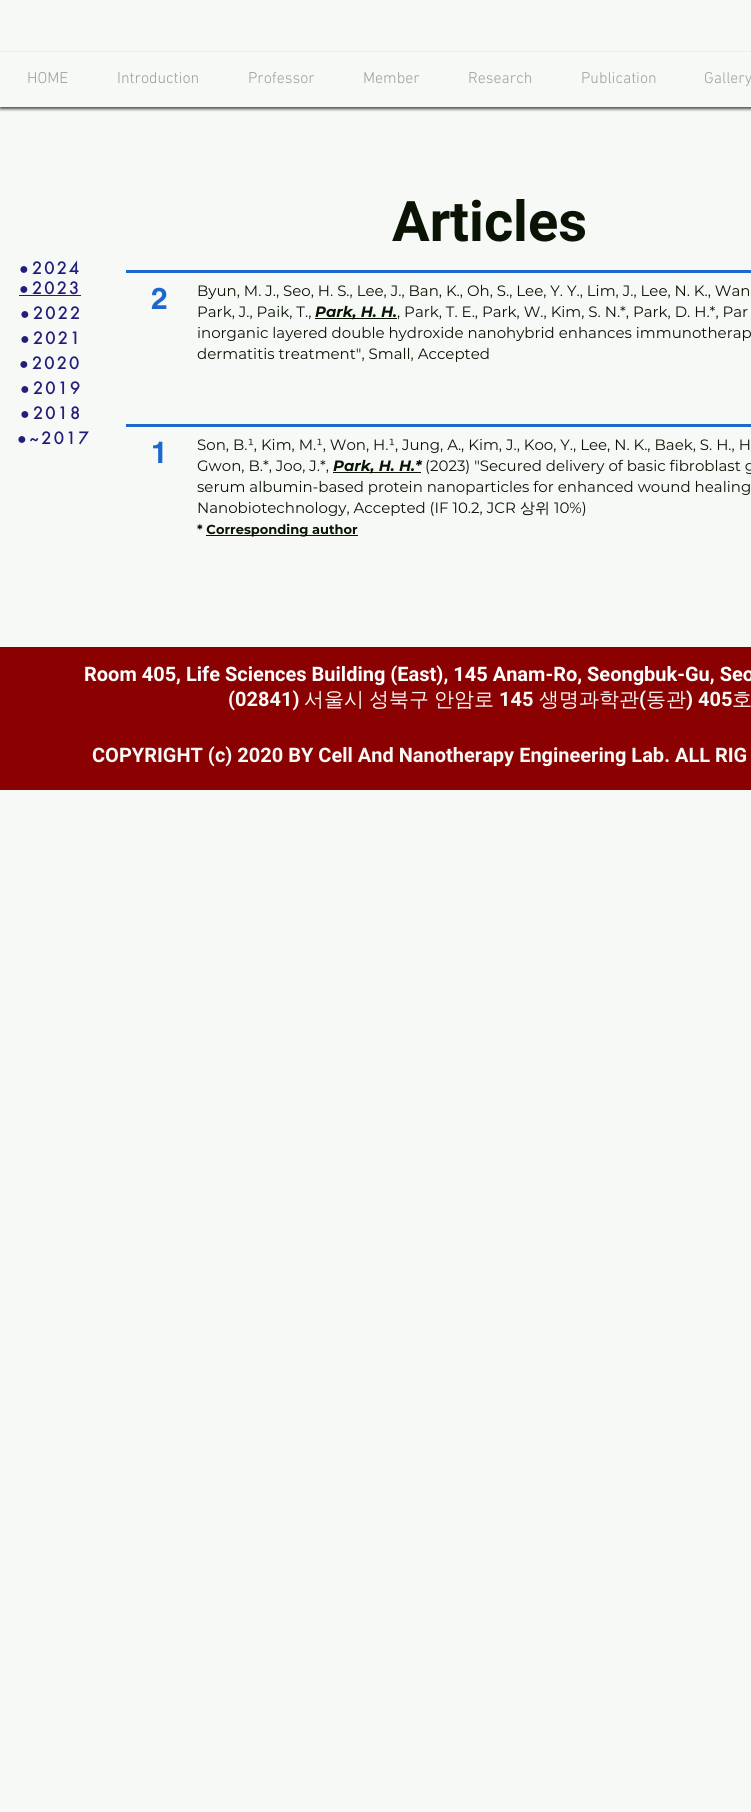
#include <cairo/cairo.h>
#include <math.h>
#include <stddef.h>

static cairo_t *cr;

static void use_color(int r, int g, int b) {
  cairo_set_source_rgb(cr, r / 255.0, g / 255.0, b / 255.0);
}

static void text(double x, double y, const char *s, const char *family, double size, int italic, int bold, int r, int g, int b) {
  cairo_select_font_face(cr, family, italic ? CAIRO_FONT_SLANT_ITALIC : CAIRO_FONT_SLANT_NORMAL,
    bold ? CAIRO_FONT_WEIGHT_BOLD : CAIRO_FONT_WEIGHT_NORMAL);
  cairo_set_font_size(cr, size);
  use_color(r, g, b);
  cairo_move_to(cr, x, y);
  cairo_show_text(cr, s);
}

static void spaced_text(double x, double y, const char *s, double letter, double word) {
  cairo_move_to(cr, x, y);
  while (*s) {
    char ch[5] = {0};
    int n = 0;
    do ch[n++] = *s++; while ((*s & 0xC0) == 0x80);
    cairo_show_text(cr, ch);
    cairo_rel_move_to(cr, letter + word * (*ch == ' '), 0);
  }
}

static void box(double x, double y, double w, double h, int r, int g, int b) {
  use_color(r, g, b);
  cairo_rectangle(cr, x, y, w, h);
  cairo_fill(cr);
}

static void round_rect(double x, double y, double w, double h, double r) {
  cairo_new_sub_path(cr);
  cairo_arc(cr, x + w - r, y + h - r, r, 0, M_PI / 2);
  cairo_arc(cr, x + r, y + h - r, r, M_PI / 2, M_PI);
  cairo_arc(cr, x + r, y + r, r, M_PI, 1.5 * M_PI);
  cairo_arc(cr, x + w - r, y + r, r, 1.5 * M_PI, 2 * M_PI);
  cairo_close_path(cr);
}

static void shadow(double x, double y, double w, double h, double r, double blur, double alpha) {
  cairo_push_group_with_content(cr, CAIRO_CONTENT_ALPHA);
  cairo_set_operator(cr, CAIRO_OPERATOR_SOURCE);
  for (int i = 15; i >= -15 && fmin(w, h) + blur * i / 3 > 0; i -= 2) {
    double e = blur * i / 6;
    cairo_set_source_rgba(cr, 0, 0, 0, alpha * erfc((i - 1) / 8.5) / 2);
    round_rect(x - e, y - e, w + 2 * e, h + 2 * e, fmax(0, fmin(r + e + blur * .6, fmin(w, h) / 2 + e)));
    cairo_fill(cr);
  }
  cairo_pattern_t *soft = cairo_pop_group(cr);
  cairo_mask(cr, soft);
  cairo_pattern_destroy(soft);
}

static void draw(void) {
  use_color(246, 249, 245);
  cairo_paint(cr);
  cairo_save(cr);
  cairo_set_fill_rule(cr, CAIRO_FILL_RULE_EVEN_ODD);
  cairo_new_path(cr);
  cairo_move_to(cr, 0, 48);
  cairo_line_to(cr, 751, 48);
  cairo_line_to(cr, 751, 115);
  cairo_line_to(cr, 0, 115);
  cairo_close_path(cr);
  cairo_move_to(cr, 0, 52);
  cairo_line_to(cr, 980, 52);
  cairo_line_to(cr, 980, 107);
  cairo_line_to(cr, 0, 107);
  cairo_close_path(cr);
  cairo_clip(cr);
  use_color(0, 0, 0);
  shadow(0, 54, 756, 55, 0, 1.5, 0.7);
  cairo_restore(cr);
  box(19, 295, 62, 1, 34, 31, 123);
  box(126, 270, 625, 3, 29, 103, 205);
  box(315, 318, 82, 1, 9, 20, 5);
  box(126, 424, 625, 3, 29, 103, 205);
  box(333, 472, 88, 1, 9, 20, 5);
  box(206, 535, 152, 1, 9, 20, 5);
  box(0, 647, 751, 143, 139, 0, 0);
  text(27, 83, "HOME", "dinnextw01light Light", 16, 0, 0, 158, 158, 158);
  text(117, 83, "Introduction", "dinnextw01light Light", 16, 0, 0, 158, 158, 158);
  text(248, 83, "Professor", "dinnextw01light Light", 16, 0, 0, 158, 158, 158);
  text(363, 83, "Member", "dinnextw01light Light", 16, 0, 0, 158, 158, 158);
  text(468, 83, "Research", "dinnextw01light Light", 16, 0, 0, 158, 158, 158);
  text(581, 83, "Publication", "dinnextw01light Light", 16, 0, 0, 158, 158, 158);
  text(704, 83, "Gallery", "dinnextw01light Light", 16, 0, 0, 158, 158, 158);
  text(392, 241, "Articles", "Roboto", 56, 0, 1, 9, 20, 5);
  cairo_select_font_face(cr, "Liberation Sans", CAIRO_FONT_SLANT_NORMAL, CAIRO_FONT_WEIGHT_BOLD);
  cairo_set_font_size(cr, 16);
  use_color(34, 31, 123);
  spaced_text(19, 274, "●", 2.5, 0);
  cairo_select_font_face(cr, "futura", CAIRO_FONT_SLANT_NORMAL, CAIRO_FONT_WEIGHT_BOLD);
  spaced_text(32, 274, "2024", 2.5, 0);
  cairo_select_font_face(cr, "Liberation Sans", CAIRO_FONT_SLANT_NORMAL, CAIRO_FONT_WEIGHT_BOLD);
  spaced_text(19, 294, "●", 2.5, 0);
  cairo_select_font_face(cr, "futura", CAIRO_FONT_SLANT_NORMAL, CAIRO_FONT_WEIGHT_BOLD);
  spaced_text(32, 294, "2023", 2.5, 0);
  cairo_select_font_face(cr, "Liberation Sans", CAIRO_FONT_SLANT_NORMAL, CAIRO_FONT_WEIGHT_BOLD);
  spaced_text(20, 319, "●", 2.5, 0);
  cairo_select_font_face(cr, "futura", CAIRO_FONT_SLANT_NORMAL, CAIRO_FONT_WEIGHT_BOLD);
  spaced_text(33, 319, "2022", 2.5, 0);
  cairo_select_font_face(cr, "Liberation Sans", CAIRO_FONT_SLANT_NORMAL, CAIRO_FONT_WEIGHT_BOLD);
  spaced_text(20, 344, "●", 2.5, 0);
  cairo_select_font_face(cr, "futura", CAIRO_FONT_SLANT_NORMAL, CAIRO_FONT_WEIGHT_BOLD);
  spaced_text(33, 344, "2021", 2.5, 0);
  cairo_select_font_face(cr, "Liberation Sans", CAIRO_FONT_SLANT_NORMAL, CAIRO_FONT_WEIGHT_BOLD);
  spaced_text(19, 369, "●", 2.5, 0);
  cairo_select_font_face(cr, "futura", CAIRO_FONT_SLANT_NORMAL, CAIRO_FONT_WEIGHT_BOLD);
  spaced_text(32, 369, "2020", 2.5, 0);
  cairo_select_font_face(cr, "Liberation Sans", CAIRO_FONT_SLANT_NORMAL, CAIRO_FONT_WEIGHT_BOLD);
  spaced_text(20, 394, "●", 2.5, 0);
  cairo_select_font_face(cr, "futura", CAIRO_FONT_SLANT_NORMAL, CAIRO_FONT_WEIGHT_BOLD);
  spaced_text(33, 394, "2019", 2.5, 0);
  cairo_select_font_face(cr, "Liberation Sans", CAIRO_FONT_SLANT_NORMAL, CAIRO_FONT_WEIGHT_BOLD);
  spaced_text(20, 419, "●", 2.5, 0);
  cairo_select_font_face(cr, "futura", CAIRO_FONT_SLANT_NORMAL, CAIRO_FONT_WEIGHT_BOLD);
  spaced_text(33, 419, "2018", 2.5, 0);
  cairo_select_font_face(cr, "Liberation Sans", CAIRO_FONT_SLANT_NORMAL, CAIRO_FONT_WEIGHT_BOLD);
  spaced_text(17, 444, "●", 2.5, 0);
  cairo_select_font_face(cr, "futura", CAIRO_FONT_SLANT_NORMAL, CAIRO_FONT_WEIGHT_BOLD);
  spaced_text(29, 444, "~2017", 2.5, 0);
  text(151, 309, "2", "helvetica", 30, 0, 1, 29, 103, 205);
  text(197, 296, "Byun, M. J., Seo, H. S., Lee, J., Ban, K., Oh, S., Lee, Y. Y., Lim, J., Lee, N. K., Wan", "Montserrat", 15, 0, 0, 9, 20, 5);
  text(197, 317, "Park, J., Paik, T.,", "Montserrat", 15, 0, 0, 9, 20, 5);
  text(315, 317, "Park, H. H.", "Montserrat", 15, 1, 1, 9, 20, 5);
  text(397, 317, ", Park, T. E., Park, W., Kim, S. N.*, Park, D. H.*, Par", "Montserrat", 15, 0, 0, 9, 20, 5);
  text(197, 338, "inorganic layered double hydroxide nanohybrid enhances immunotherap", "Montserrat", 15, 0, 0, 9, 20, 5);
  text(197, 359, "dermatitis treatment\", Small, Accepted", "Montserrat", 15, 0, 0, 9, 20, 5);
  text(151, 463, "1", "helvetica", 30, 0, 1, 29, 103, 205);
  text(197, 450, "Son, B.¹, Kim, M.¹, Won, H.¹, Jung, A., Kim, J., Koo, Y., Lee, N. K., Baek, S. H., H", "Montserrat", 15, 0, 0, 9, 20, 5);
  text(197, 471, "Gwon, B.*, Joo, J.*,", "Montserrat", 15, 0, 0, 9, 20, 5);
  text(333, 471, "Park, H. H.*", "Montserrat", 15, 1, 1, 9, 20, 5);
  text(425, 471, "(2023) \"Secured delivery of basic fibroblast g", "Montserrat", 15, 0, 0, 9, 20, 5);
  text(197, 492, "serum albumin-based protein nanoparticles for enhanced wound healing", "Montserrat", 15, 0, 0, 9, 20, 5);
  text(197, 513, "Nanobiotechnology, Accepted (IF 10.2, JCR", "Montserrat", 15, 0, 0, 9, 20, 5);
  text(520, 513, "상위", "WenQuanYi Zen Hei Medium", 15, 0, 0, 9, 20, 5);
  text(554, 513, "10%)", "Montserrat", 15, 0, 0, 9, 20, 5);
  text(197, 534, "* C", "Montserrat", 13, 0, 1, 9, 20, 5);
  text(216, 534, "orresponding author", "Montserrat", 13, 0, 1, 9, 20, 5);
  text(84, 681, "Room 405, Life Sciences Building (East), 145 Anam-Ro, Seongbuk-Gu, Seo", "Roboto", 20, 0, 1, 255, 255, 255);
  text(228, 706, "(02841)", "Roboto", 20, 0, 1, 246, 249, 245);
  text(304, 706, "서울시", "WenQuanYi Zen Hei Medium", 20, 0, 0, 246, 249, 245);
  text(369, 706, "성북구", "WenQuanYi Zen Hei Medium", 20, 0, 0, 246, 249, 245);
  text(434, 706, "안암로", "WenQuanYi Zen Hei Medium", 20, 0, 0, 246, 249, 245);
  text(499, 706, "145", "Roboto", 20, 0, 1, 246, 249, 245);
  text(539, 706, "생명과학관", "WenQuanYi Zen Hei Medium", 20, 0, 0, 246, 249, 245);
  text(639, 706, "(", "Roboto", 20, 0, 1, 246, 249, 245);
  text(646, 706, "동관", "WenQuanYi Zen Hei Medium", 20, 0, 0, 246, 249, 245);
  text(686, 706, ") 405", "Roboto", 20, 0, 1, 246, 249, 245);
  text(732, 706, "호", "WenQuanYi Zen Hei Medium", 20, 0, 0, 246, 249, 245);
  text(92, 762, "COPYRIGHT (c) 2020 BY Cell And Nanotherapy Engineering Lab. ALL RIG", "Roboto", 20, 0, 1, 246, 249, 245);
}

int main(void) {
  cairo_surface_t *surface = cairo_image_surface_create(CAIRO_FORMAT_RGB24, 751, 1812);
  cr = cairo_create(surface);
  cairo_font_options_t *options = cairo_font_options_create();
  cairo_font_options_set_hint_metrics(options, CAIRO_HINT_METRICS_OFF);
  cairo_font_options_set_hint_style(options, CAIRO_HINT_STYLE_NONE);
  cairo_set_font_options(cr, options);
  cairo_set_miter_limit(cr, 4);
  draw();
  cairo_surface_write_to_png(surface, "out.png");
  cairo_font_options_destroy(options);
  cairo_destroy(cr);
  cairo_surface_destroy(surface);
  return 0;
}
